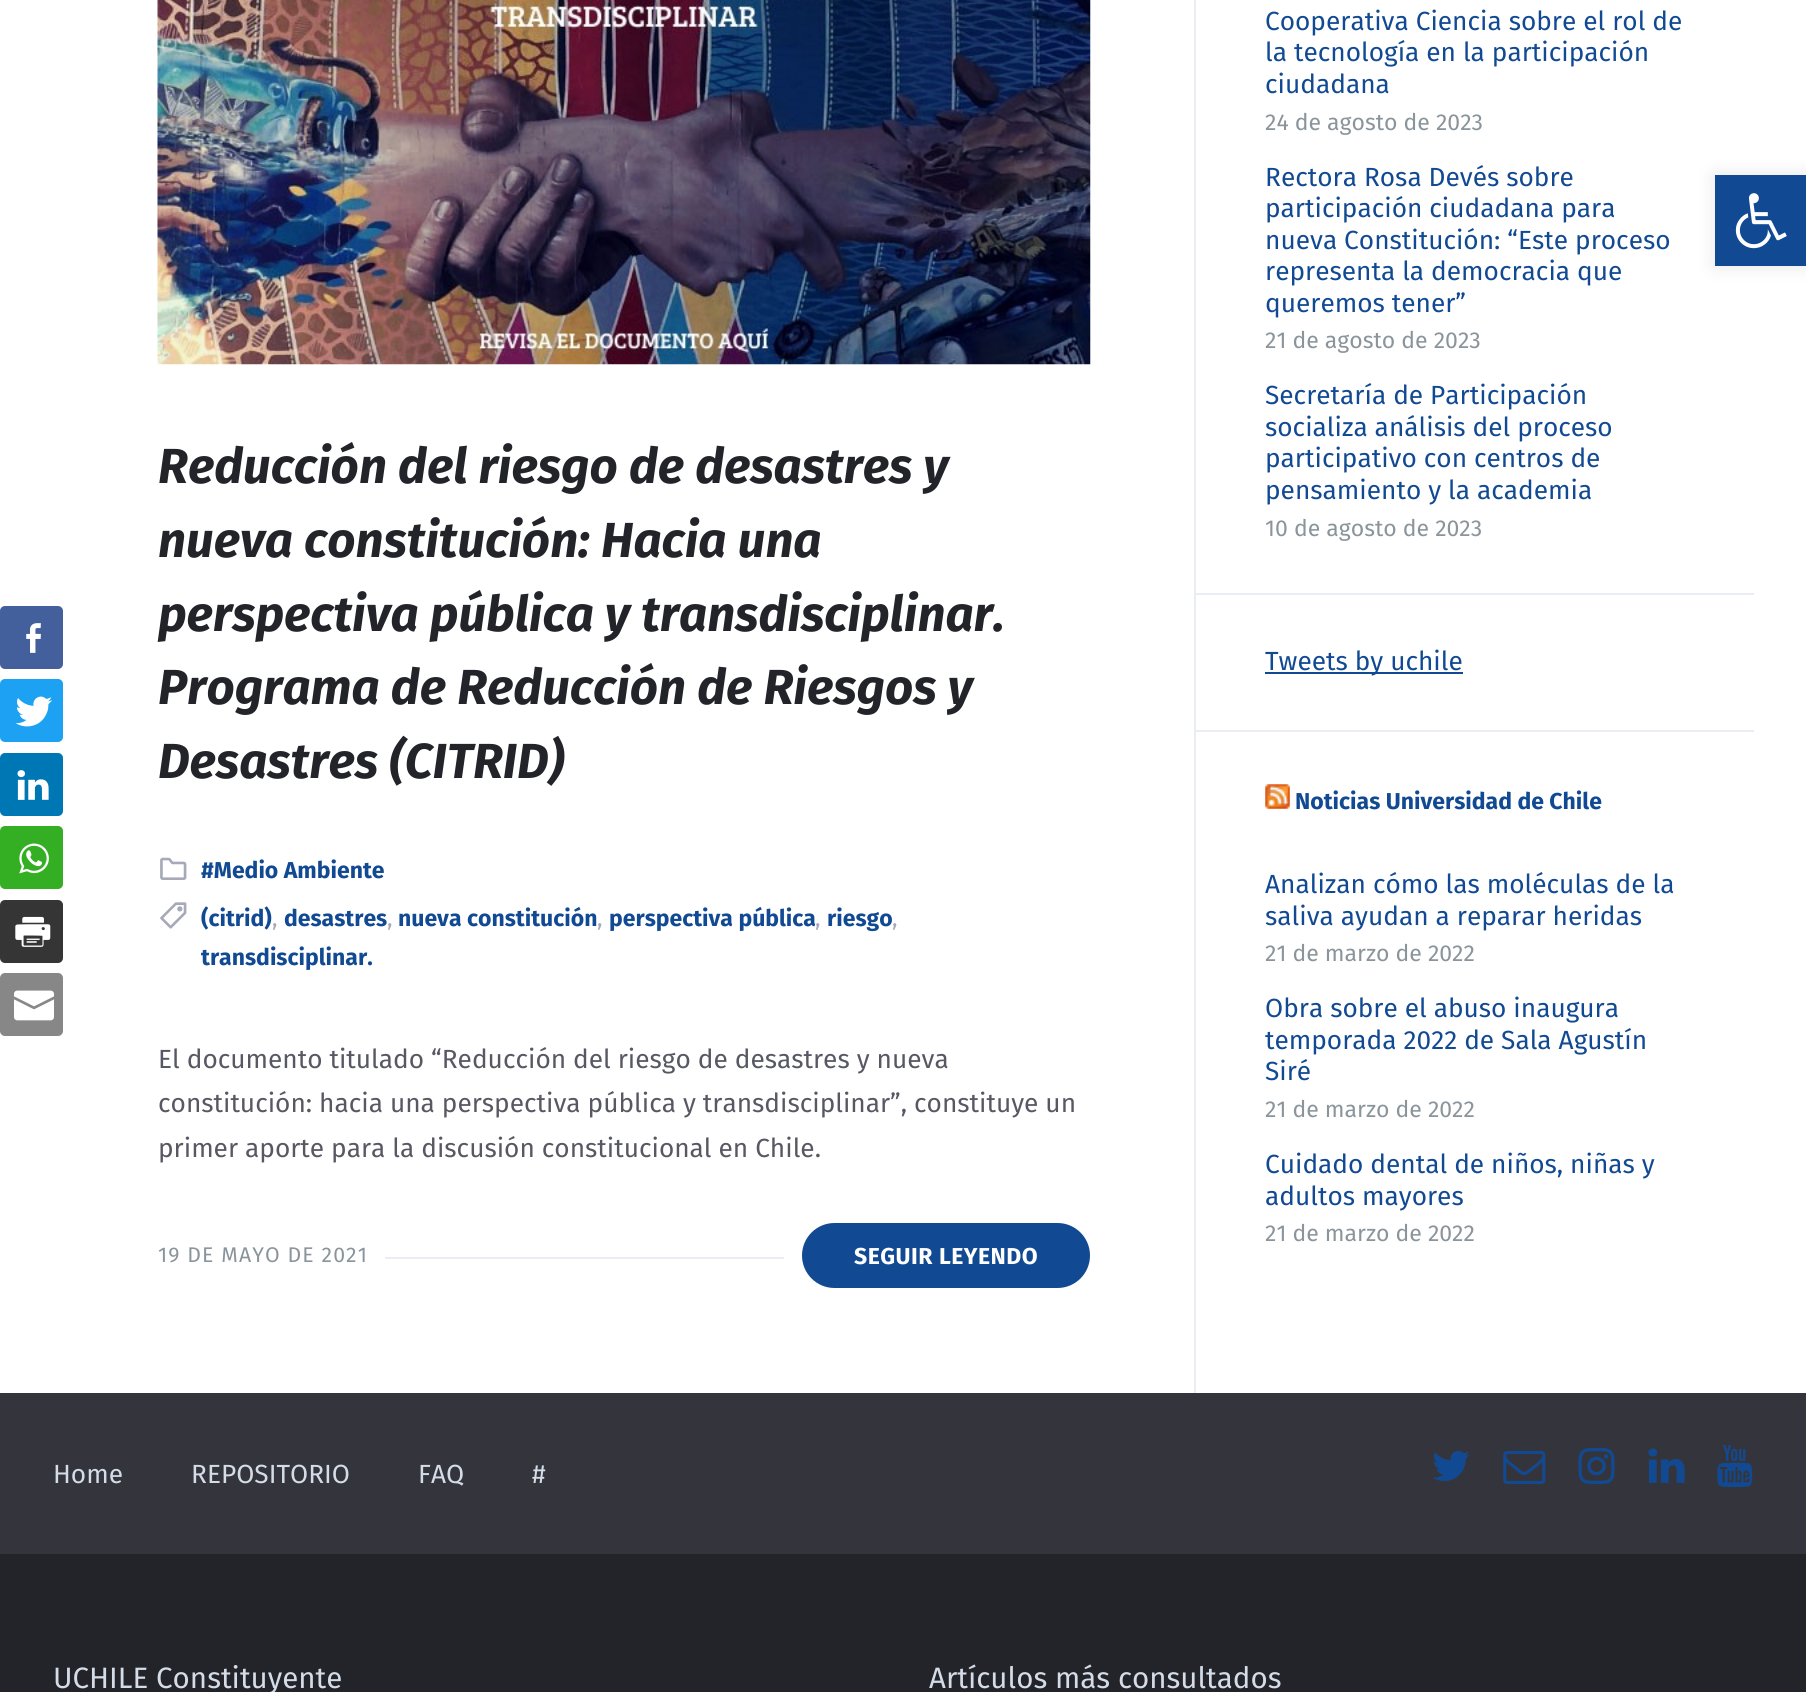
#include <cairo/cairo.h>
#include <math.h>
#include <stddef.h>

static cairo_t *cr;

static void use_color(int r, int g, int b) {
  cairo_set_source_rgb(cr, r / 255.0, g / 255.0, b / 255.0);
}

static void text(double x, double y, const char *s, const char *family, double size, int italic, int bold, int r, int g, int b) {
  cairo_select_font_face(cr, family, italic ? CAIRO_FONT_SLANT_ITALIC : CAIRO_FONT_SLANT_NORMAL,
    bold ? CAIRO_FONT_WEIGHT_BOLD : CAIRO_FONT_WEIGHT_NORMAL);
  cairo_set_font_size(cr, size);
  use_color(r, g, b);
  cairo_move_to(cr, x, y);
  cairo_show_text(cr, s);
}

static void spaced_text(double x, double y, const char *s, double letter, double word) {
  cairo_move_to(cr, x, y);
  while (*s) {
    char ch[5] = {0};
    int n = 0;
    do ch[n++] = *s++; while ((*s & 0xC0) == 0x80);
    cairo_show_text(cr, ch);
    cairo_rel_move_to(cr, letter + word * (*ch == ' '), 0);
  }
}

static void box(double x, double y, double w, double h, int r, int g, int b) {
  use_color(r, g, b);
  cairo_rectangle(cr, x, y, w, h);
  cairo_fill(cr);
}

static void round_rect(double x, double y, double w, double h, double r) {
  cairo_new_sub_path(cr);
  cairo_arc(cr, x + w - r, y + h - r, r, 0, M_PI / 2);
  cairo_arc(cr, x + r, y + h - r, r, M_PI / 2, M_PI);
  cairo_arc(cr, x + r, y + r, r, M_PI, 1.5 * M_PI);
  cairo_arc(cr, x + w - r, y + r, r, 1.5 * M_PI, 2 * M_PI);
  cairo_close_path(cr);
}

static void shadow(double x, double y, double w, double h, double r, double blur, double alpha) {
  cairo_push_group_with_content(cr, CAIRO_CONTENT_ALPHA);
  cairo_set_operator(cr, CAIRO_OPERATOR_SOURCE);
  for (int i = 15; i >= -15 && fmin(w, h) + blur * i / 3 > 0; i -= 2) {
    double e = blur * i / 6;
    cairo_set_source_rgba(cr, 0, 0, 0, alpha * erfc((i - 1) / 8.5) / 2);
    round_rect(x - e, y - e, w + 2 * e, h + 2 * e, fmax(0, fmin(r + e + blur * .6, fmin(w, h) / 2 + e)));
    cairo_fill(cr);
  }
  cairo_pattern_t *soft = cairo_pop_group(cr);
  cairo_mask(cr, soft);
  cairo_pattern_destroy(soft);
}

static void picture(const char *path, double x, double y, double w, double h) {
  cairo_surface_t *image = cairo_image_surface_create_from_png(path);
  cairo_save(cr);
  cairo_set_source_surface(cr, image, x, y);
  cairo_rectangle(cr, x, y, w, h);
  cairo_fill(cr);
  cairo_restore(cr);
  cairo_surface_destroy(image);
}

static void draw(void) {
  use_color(255, 255, 255);
  cairo_paint(cr);
  picture("img_01.png", 157, 0, 934, 365);
  picture("img_02.png", 160, 857, 27, 23);
  picture("img_03.png", 160, 902, 27, 27);
  use_color(17, 74, 147);
  round_rect(802, 1223, 288, 65, 32.5);
  cairo_fill(cr);
  box(385, 1257, 399, 2, 234, 237, 243);
  box(1194, 0, 2, 1393, 234, 237, 243);
  box(1195, 593, 559, 2, 234, 237, 243);
  box(1265, 672, 198, 2, 17, 74, 147);
  box(1195, 730, 559, 2, 234, 237, 243);
  picture("img_04.png", 1265, 784, 25, 25);
  box(0, 1554, 1806, 138, 35, 36, 41);
  box(0, 1393, 1806, 161, 52, 53, 60);
  picture("img_05.png", 1432, 1451, 38, 30);
  picture("img_06.png", 1503, 1451, 43, 33);
  picture("img_07.png", 1578, 1448, 37, 36);
  picture("img_08.png", 1648, 1448, 37, 35);
  picture("img_09.png", 1717, 1445, 36, 42);
  use_color(0, 0, 0);
  shadow(1715, 175, 91, 91, 0, 9, 0.1);
  box(1715, 175, 91, 91, 17, 74, 147);
  picture("img_10.png", 1735, 193, 52, 56);
  use_color(67, 96, 156);
  round_rect(0, 606, 63, 63, 5);
  cairo_fill(cr);
  picture("img_11.png", 26, 623, 15, 30);
  use_color(29, 161, 242);
  round_rect(0, 679, 63, 63, 5);
  cairo_fill(cr);
  picture("img_12.png", 15, 696, 37, 31);
  use_color(0, 119, 181);
  round_rect(0, 753, 63, 63, 5);
  cairo_fill(cr);
  picture("img_13.png", 17, 770, 32, 30);
  use_color(52, 175, 35);
  round_rect(0, 826, 63, 63, 5);
  cairo_fill(cr);
  picture("img_14.png", 19, 843, 30, 31);
  use_color(53, 53, 53);
  round_rect(0, 900, 63, 63, 5);
  cairo_fill(cr);
  picture("img_15.png", 15, 916, 36, 31);
  use_color(135, 135, 135);
  round_rect(0, 973, 63, 63, 5);
  cairo_fill(cr);
  picture("img_16.png", 14, 990, 40, 31);
  text(158, 483, "Reducción del riesgo de desastres y", "Fira Sans", 49.25, 1, 1, 35, 36, 41);
  text(158, 557, "nueva constitución: Hacia una", "Fira Sans", 49.25, 1, 1, 35, 36, 41);
  text(158, 631, "perspectiva pública y transdisciplinar.", "Fira Sans", 49.25, 1, 1, 35, 36, 41);
  text(158, 704, "Programa de Reducción de Riesgos y", "Fira Sans", 49.25, 1, 1, 35, 36, 41);
  text(158, 778, "Desastres (CITRID)", "Fira Sans", 49.25, 1, 1, 35, 36, 41);
  text(201, 878, "#Medio Ambiente", "Fira Sans", 23, 0, 1, 17, 74, 147);
  text(201, 926, "(citrid)", "Fira Sans", 23, 0, 1, 17, 74, 147);
  text(272, 926, ",", "Fira Sans", 23, 0, 0, 166, 169, 183);
  text(284, 926, "desastres", "Fira Sans", 23, 0, 1, 17, 74, 147);
  text(387, 926, ",", "Fira Sans", 23, 0, 0, 166, 169, 183);
  text(398, 926, "nueva constitución", "Fira Sans", 23, 0, 1, 17, 74, 147);
  text(597, 926, ",", "Fira Sans", 23, 0, 0, 166, 169, 183);
  text(609, 926, "perspectiva pública", "Fira Sans", 23, 0, 1, 17, 74, 147);
  text(815, 926, ",", "Fira Sans", 23, 0, 0, 166, 169, 183);
  text(827, 926, "riesgo", "Fira Sans", 23, 0, 1, 17, 74, 147);
  text(892, 926, ",", "Fira Sans", 23, 0, 0, 166, 169, 183);
  text(201, 965, "transdisciplinar.", "Fira Sans", 23, 0, 1, 17, 74, 147);
  text(158, 1068, "El documento titulado “Reducción del riesgo de desastres y nueva", "Fira Sans", 26.25, 0, 0, 87, 88, 99);
  text(158, 1112, "constitución: hacia una perspectiva pública y transdisciplinar”, constituye un", "Fira Sans", 26.25, 0, 0, 87, 88, 99);
  text(158, 1157, "primer aporte para la discusión constitucional en Chile.", "Fira Sans", 26.25, 0, 0, 87, 88, 99);
  cairo_set_font_size(cr, 21.25);
  use_color(138, 148, 155);
  spaced_text(158, 1262, "19 DE MAYO DE 2021", 1.1, 0);
  cairo_select_font_face(cr, "Fira Sans", CAIRO_FONT_SLANT_NORMAL, CAIRO_FONT_WEIGHT_BOLD);
  cairo_set_font_size(cr, 23);
  use_color(255, 255, 255);
  spaced_text(854, 1264, "SEGUIR LEYENDO", 0.5, 0);
  text(1265, 30, "Cooperativa Ciencia sobre el rol de", "Fira Sans", 26.25, 0, 0, 17, 74, 147);
  text(1265, 61, "la tecnología en la participación", "Fira Sans", 26.25, 0, 0, 17, 74, 147);
  text(1265, 93, "ciudadana", "Fira Sans", 26.25, 0, 0, 17, 74, 147);
  text(1265, 130, "24 de agosto de 2023", "Fira Sans", 23, 0, 0, 138, 148, 155);
  text(1265, 186, "Rectora Rosa Devés sobre", "Fira Sans", 26.25, 0, 0, 17, 74, 147);
  text(1265, 217, "participación ciudadana para", "Fira Sans", 26.25, 0, 0, 17, 74, 147);
  text(1265, 249, "nueva Constitución: “Este proceso", "Fira Sans", 26.25, 0, 0, 17, 74, 147);
  text(1265, 280, "representa la democracia que", "Fira Sans", 26.25, 0, 0, 17, 74, 147);
  text(1265, 312, "queremos tener”", "Fira Sans", 26.25, 0, 0, 17, 74, 147);
  text(1265, 348, "21 de agosto de 2023", "Fira Sans", 23, 0, 0, 138, 148, 155);
  text(1265, 404, "Secretaría de Participación", "Fira Sans", 26.25, 0, 0, 17, 74, 147);
  text(1265, 436, "socializa análisis del proceso", "Fira Sans", 26.25, 0, 0, 17, 74, 147);
  text(1265, 467, "participativo con centros de", "Fira Sans", 26.25, 0, 0, 17, 74, 147);
  text(1265, 499, "pensamiento y la academia", "Fira Sans", 26.25, 0, 0, 17, 74, 147);
  text(1265, 536, "10 de agosto de 2023", "Fira Sans", 23, 0, 0, 138, 148, 155);
  text(1265, 670, "Tweets by uchile", "Fira Sans", 26.25, 0, 0, 17, 74, 147);
  text(1295, 809, "Noticias Universidad de Chile", "Fira Sans", 23, 0, 1, 17, 74, 147);
  text(1265, 893, "Analizan cómo las moléculas de la", "Fira Sans", 26.25, 0, 0, 17, 74, 147);
  text(1265, 925, "saliva ayudan a reparar heridas", "Fira Sans", 26.25, 0, 0, 17, 74, 147);
  text(1265, 961, "21 de marzo de 2022", "Fira Sans", 23, 0, 0, 138, 148, 155);
  text(1265, 1017, "Obra sobre el abuso inaugura", "Fira Sans", 26.25, 0, 0, 17, 74, 147);
  text(1265, 1049, "temporada 2022 de Sala Agustín", "Fira Sans", 26.25, 0, 0, 17, 74, 147);
  text(1265, 1080, "Siré", "Fira Sans", 26.25, 0, 0, 17, 74, 147);
  text(1265, 1117, "21 de marzo de 2022", "Fira Sans", 23, 0, 0, 138, 148, 155);
  text(1265, 1173, "Cuidado dental de niños, niñas y", "Fira Sans", 26.25, 0, 0, 17, 74, 147);
  text(1265, 1205, "adultos mayores", "Fira Sans", 26.25, 0, 0, 17, 74, 147);
  text(1265, 1241, "21 de marzo de 2022", "Fira Sans", 23, 0, 0, 138, 148, 155);
  text(53, 1483, "Home", "Fira Sans", 26.25, 0, 0, 212, 220, 232);
  text(191, 1483, "REPOSITORIO", "Fira Sans", 26.25, 0, 0, 212, 220, 232);
  text(418, 1483, "FAQ", "Fira Sans", 26.25, 0, 0, 212, 220, 232);
  text(532, 1483, "#", "Fira Sans", 26.25, 0, 0, 212, 220, 232);
  text(53, 1688, "UCHILE Constituyente", "Fira Sans", 29.5, 0, 0, 212, 220, 232);
  text(929, 1688, "Artículos más consultados", "Fira Sans", 29.5, 0, 0, 212, 220, 232);
}

int main(void) {
  cairo_surface_t *surface = cairo_image_surface_create(CAIRO_FORMAT_RGB24, 1806, 1692);
  cr = cairo_create(surface);
  cairo_font_options_t *options = cairo_font_options_create();
  cairo_font_options_set_hint_metrics(options, CAIRO_HINT_METRICS_OFF);
  cairo_font_options_set_hint_style(options, CAIRO_HINT_STYLE_NONE);
  cairo_set_font_options(cr, options);
  cairo_set_miter_limit(cr, 4);
  draw();
  cairo_surface_write_to_png(surface, "out.png");
  cairo_font_options_destroy(options);
  cairo_destroy(cr);
  cairo_surface_destroy(surface);
  return 0;
}
